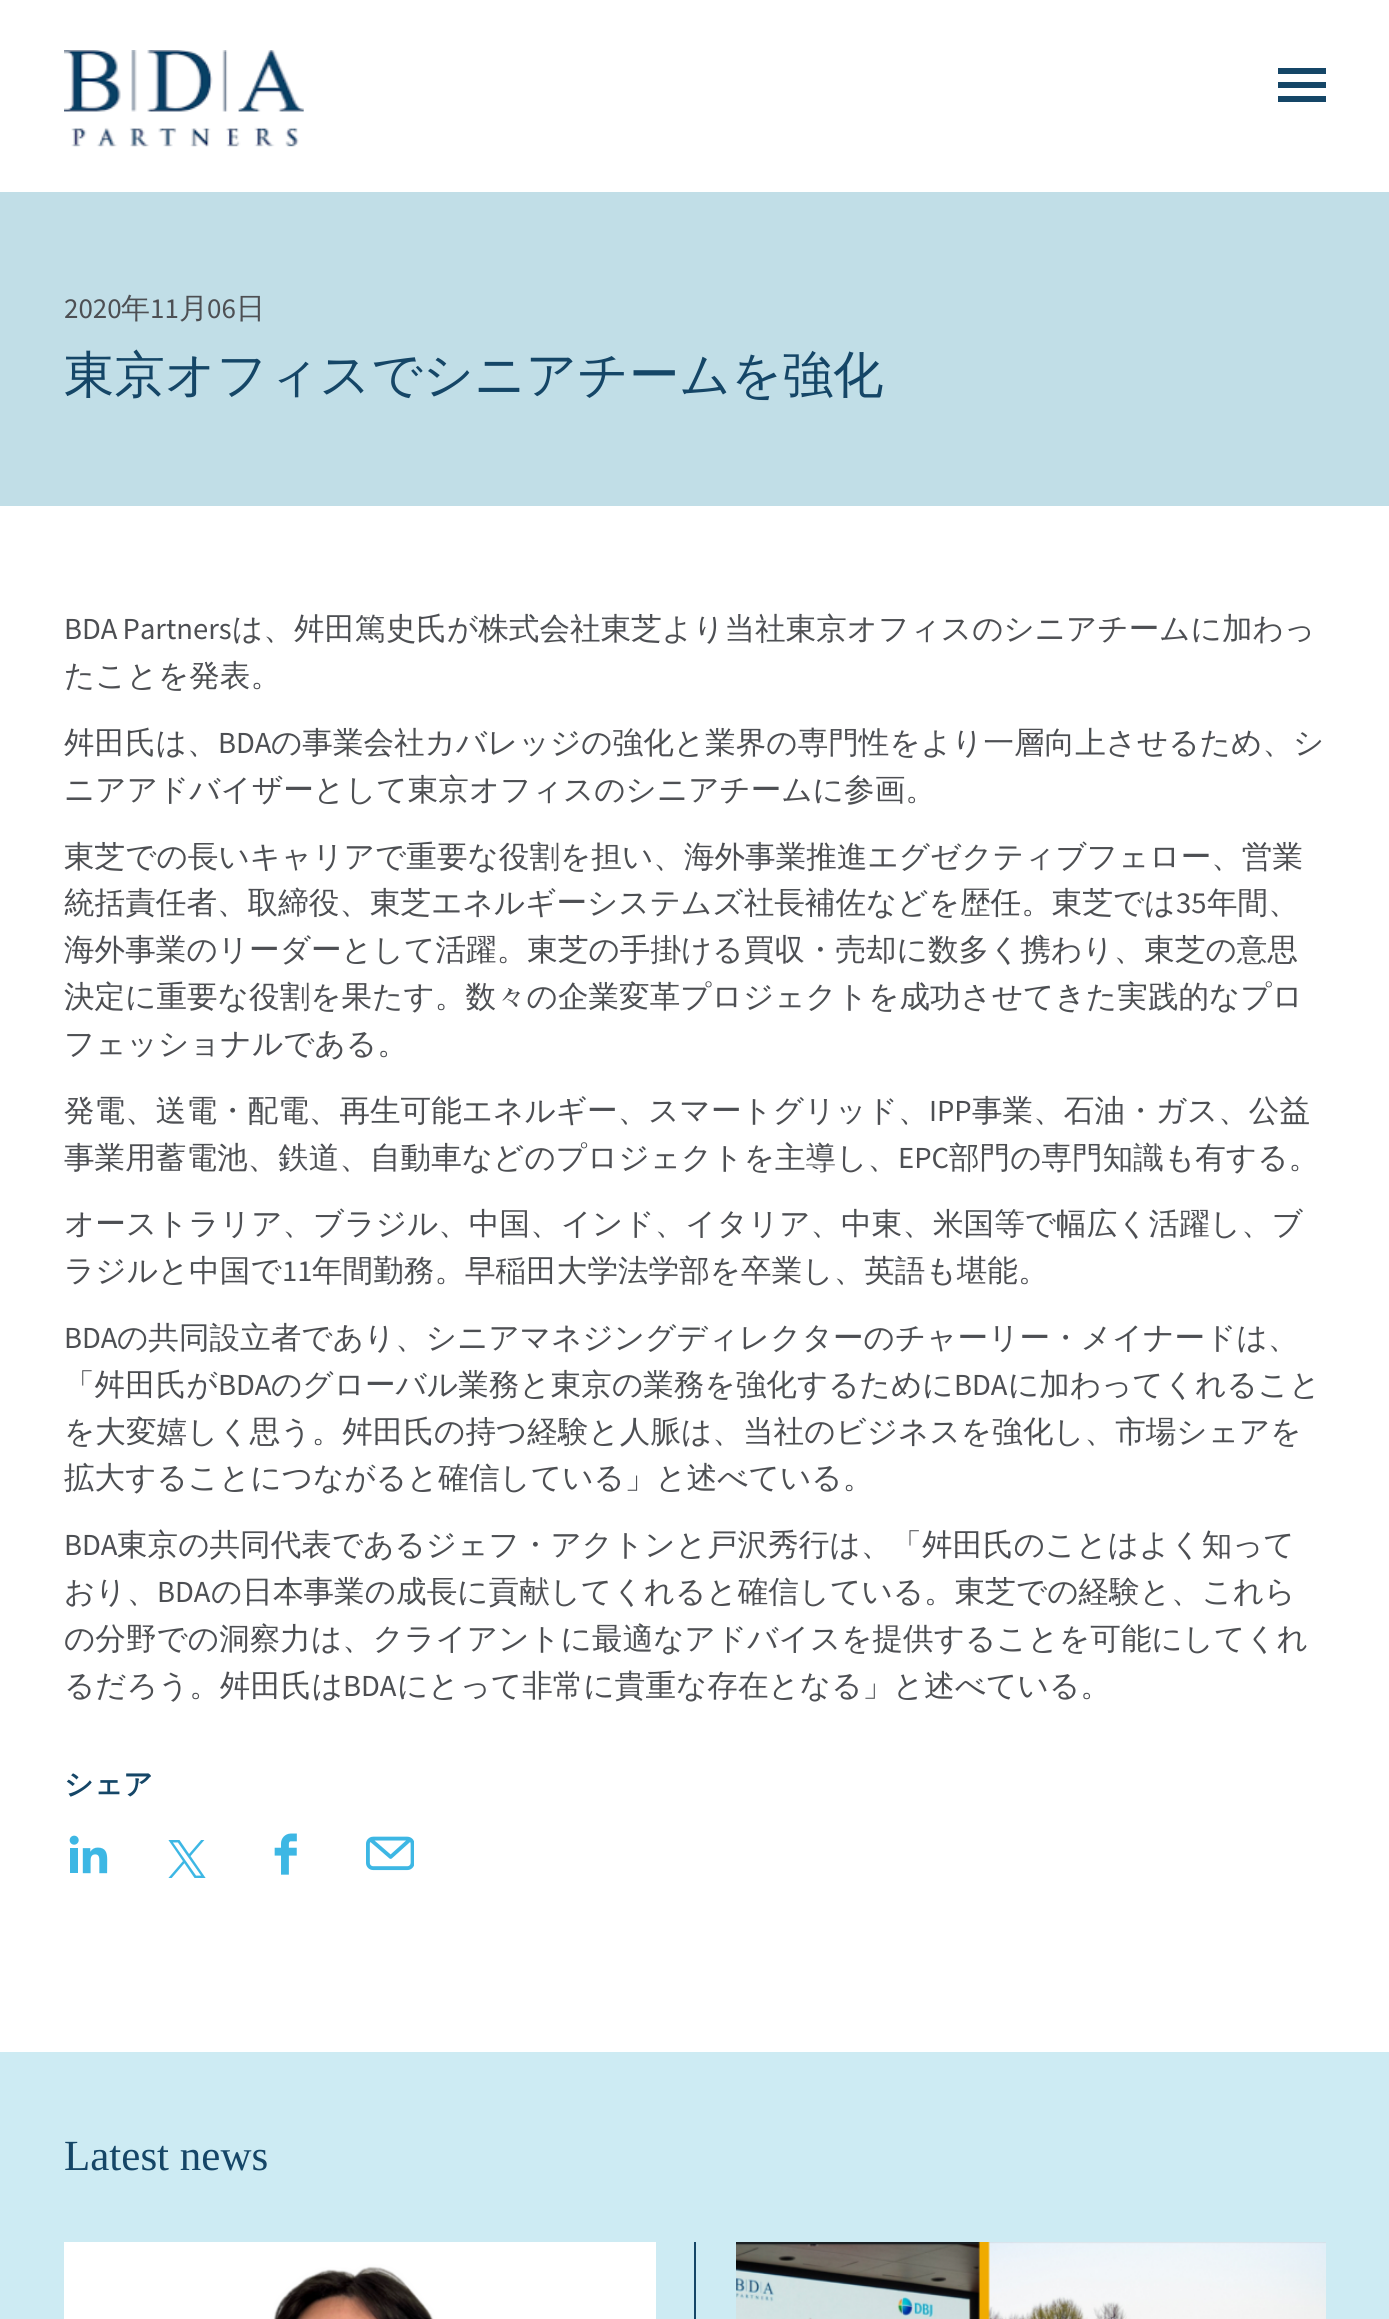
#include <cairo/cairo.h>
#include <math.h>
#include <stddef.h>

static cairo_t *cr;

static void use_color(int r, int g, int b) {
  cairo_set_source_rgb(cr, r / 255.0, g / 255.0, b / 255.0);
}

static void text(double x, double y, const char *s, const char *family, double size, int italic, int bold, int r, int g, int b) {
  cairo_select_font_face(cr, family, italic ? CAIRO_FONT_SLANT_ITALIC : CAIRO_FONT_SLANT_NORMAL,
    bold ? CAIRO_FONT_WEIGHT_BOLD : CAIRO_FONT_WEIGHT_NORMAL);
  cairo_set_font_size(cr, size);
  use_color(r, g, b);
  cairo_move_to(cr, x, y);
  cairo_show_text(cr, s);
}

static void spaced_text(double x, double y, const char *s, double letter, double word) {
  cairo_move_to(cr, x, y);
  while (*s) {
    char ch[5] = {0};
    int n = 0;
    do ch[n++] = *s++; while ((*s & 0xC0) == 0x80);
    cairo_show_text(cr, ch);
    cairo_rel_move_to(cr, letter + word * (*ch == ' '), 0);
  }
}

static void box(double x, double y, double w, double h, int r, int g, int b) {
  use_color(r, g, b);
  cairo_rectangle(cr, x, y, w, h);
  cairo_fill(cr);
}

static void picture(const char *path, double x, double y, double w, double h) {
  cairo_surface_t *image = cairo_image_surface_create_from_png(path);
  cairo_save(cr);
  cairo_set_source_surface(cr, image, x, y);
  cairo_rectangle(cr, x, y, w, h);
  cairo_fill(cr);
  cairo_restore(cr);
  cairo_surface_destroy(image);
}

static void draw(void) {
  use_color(255, 255, 255);
  cairo_paint(cr);
  picture("img_01.png", 64, 50, 240, 97);
  box(1278, 68, 48, 6, 21, 70, 103);
  box(1278, 82, 48, 6, 21, 70, 103);
  box(1278, 96, 48, 6, 21, 70, 103);
  box(0, 192, 1389, 314, 193, 222, 231);
  picture("img_02.png", 69, 1835, 39, 39);
  picture("img_03.png", 168, 1840, 38, 38);
  picture("img_04.png", 274, 1833, 23, 42);
  picture("img_05.png", 366, 1836, 48, 35);
  box(0, 2052, 1389, 267, 205, 235, 243);
  picture("img_06.png", 64, 2242, 592, 77);
  box(694, 2242, 2, 77, 21, 70, 103);
  picture("img_07.png", 736, 2242, 590, 77);
  text(64, 318, "2020", "Source Sans Pro", 29, 0, 0, 77, 79, 83);
  text(121, 318, "年", "WenQuanYi Zen Hei Medium", 29, 0, 0, 77, 79, 83);
  text(150, 318, "11", "Source Sans Pro", 29, 0, 0, 77, 79, 83);
  text(179, 318, "月", "WenQuanYi Zen Hei Medium", 29, 0, 0, 77, 79, 83);
  text(207, 318, "06", "Source Sans Pro", 29, 0, 0, 77, 79, 83);
  text(236, 318, "日", "WenQuanYi Zen Hei Medium", 29, 0, 0, 77, 79, 83);
  text(64, 392, "東京オフィスでシニアチームを強化", "WenQuanYi Zen Hei Medium", 50.4, 0, 0, 21, 70, 103);
  cairo_select_font_face(cr, "Source Sans Pro", CAIRO_FONT_SLANT_NORMAL, CAIRO_FONT_WEIGHT_NORMAL);
  cairo_set_font_size(cr, 30.6);
  use_color(77, 79, 83);
  spaced_text(64, 639, "BDA Partners", 0, -1);
  text(232, 639, "は、舛田篤史氏が株式会社東芝より当社東京オフィスのシニアチームに加わっ", "WenQuanYi Zen Hei Medium", 30.6, 0, 0, 77, 79, 83);
  text(64, 686, "たことを発表。", "WenQuanYi Zen Hei Medium", 30.6, 0, 0, 77, 79, 83);
  text(64, 753, "舛田氏は、", "WenQuanYi Zen Hei Medium", 30.6, 0, 0, 77, 79, 83);
  text(218, 753, "BDA", "Source Sans Pro", 30.6, 0, 0, 77, 79, 83);
  text(271, 753, "の事業会社カバレッジの強化と業界の専門性をより一層向上させるため、シ", "WenQuanYi Zen Hei Medium", 30.6, 0, 0, 77, 79, 83);
  text(64, 800, "ニアアドバイザーとして東京オフィスのシニアチームに参画。", "WenQuanYi Zen Hei Medium", 30.6, 0, 0, 77, 79, 83);
  text(64, 867, "東芝での長いキャリアで重要な役割を担い、海外事業推進エグゼクティブフェロー、営業", "WenQuanYi Zen Hei Medium", 30.6, 0, 0, 77, 79, 83);
  text(64, 913, "統括責任者、取締役、東芝エネルギーシステムズ社長補佐などを歴任。東芝では", "WenQuanYi Zen Hei Medium", 30.6, 0, 0, 77, 79, 83);
  text(1176, 913, "35", "Source Sans Pro", 30.6, 0, 0, 77, 79, 83);
  text(1207, 913, "年間、", "WenQuanYi Zen Hei Medium", 30.6, 0, 0, 77, 79, 83);
  text(64, 960, "海外事業のリーダーとして活躍。東芝の手掛ける買収・売却に数多く携わり、東芝の意思", "WenQuanYi Zen Hei Medium", 30.6, 0, 0, 77, 79, 83);
  text(64, 1007, "決定に重要な役割を果たす。数々の企業変革プロジェクトを成功させてきた実践的なプロ", "WenQuanYi Zen Hei Medium", 30.6, 0, 0, 77, 79, 83);
  text(64, 1054, "フェッショナルである。", "WenQuanYi Zen Hei Medium", 30.6, 0, 0, 77, 79, 83);
  text(64, 1121, "発電、送電・配電、再生可能エネルギー、スマートグリッド、", "WenQuanYi Zen Hei Medium", 30.6, 0, 0, 77, 79, 83);
  text(929, 1121, "IPP", "Source Sans Pro", 30.6, 0, 0, 77, 79, 83);
  text(972, 1121, "事業、石油・ガス、公益", "WenQuanYi Zen Hei Medium", 30.6, 0, 0, 77, 79, 83);
  text(64, 1168, "事業用蓄電池、鉄道、自動車などのプロジェクトを主導し、", "WenQuanYi Zen Hei Medium", 30.6, 0, 0, 77, 79, 83);
  text(898, 1168, "EPC", "Source Sans Pro", 30.6, 0, 0, 77, 79, 83);
  text(949, 1168, "部門の専門知識も有する。", "WenQuanYi Zen Hei Medium", 30.6, 0, 0, 77, 79, 83);
  text(64, 1234, "オーストラリア、ブラジル、中国、インド、イタリア、中東、米国等で幅広く活躍し、ブ", "WenQuanYi Zen Hei Medium", 30.6, 0, 0, 77, 79, 83);
  text(64, 1281, "ラジルと中国で", "WenQuanYi Zen Hei Medium", 30.6, 0, 0, 77, 79, 83);
  text(282, 1281, "11", "Source Sans Pro", 30.6, 0, 0, 77, 79, 83);
  text(312, 1281, "年間勤務。早稲田大学法学部を卒業し、英語も堪能。", "WenQuanYi Zen Hei Medium", 30.6, 0, 0, 77, 79, 83);
  text(64, 1348, "BDA", "Source Sans Pro", 30.6, 0, 0, 77, 79, 83);
  text(117, 1348, "の共同設立者であり、シニアマネジングディレクターのチャーリー・メイナードは、", "WenQuanYi Zen Hei Medium", 30.6, 0, 0, 77, 79, 83);
  text(64, 1395, "「舛田氏が", "WenQuanYi Zen Hei Medium", 30.6, 0, 0, 77, 79, 83);
  text(218, 1395, "BDA", "Source Sans Pro", 30.6, 0, 0, 77, 79, 83);
  text(271, 1395, "のグローバル業務と東京の業務を強化するために", "WenQuanYi Zen Hei Medium", 30.6, 0, 0, 77, 79, 83);
  text(954, 1395, "BDA", "Source Sans Pro", 30.6, 0, 0, 77, 79, 83);
  text(1008, 1395, "に加わってくれること", "WenQuanYi Zen Hei Medium", 30.6, 0, 0, 77, 79, 83);
  text(64, 1442, "を大変嬉しく思う。舛田氏の持つ経験と人脈は、当社のビジネスを強化し、市場シェアを", "WenQuanYi Zen Hei Medium", 30.6, 0, 0, 77, 79, 83);
  text(64, 1488, "拡大することにつながると確信している」と述べている。", "WenQuanYi Zen Hei Medium", 30.6, 0, 0, 77, 79, 83);
  text(64, 1555, "BDA", "Source Sans Pro", 30.6, 0, 0, 77, 79, 83);
  text(117, 1555, "東京の共同代表であるジェフ・アクトンと戸沢秀行は、「舛田氏のことはよく知って", "WenQuanYi Zen Hei Medium", 30.6, 0, 0, 77, 79, 83);
  text(64, 1602, "おり、", "WenQuanYi Zen Hei Medium", 30.6, 0, 0, 77, 79, 83);
  text(157, 1602, "BDA", "Source Sans Pro", 30.6, 0, 0, 77, 79, 83);
  text(211, 1602, "の日本事業の成長に貢献してくれると確信している。東芝での経験と、これら", "WenQuanYi Zen Hei Medium", 30.6, 0, 0, 77, 79, 83);
  text(64, 1649, "の分野での洞察力は、クライアントに最適なアドバイスを提供することを可能にしてくれ", "WenQuanYi Zen Hei Medium", 30.6, 0, 0, 77, 79, 83);
  text(64, 1696, "るだろう。舛田氏は", "WenQuanYi Zen Hei Medium", 30.6, 0, 0, 77, 79, 83);
  text(343, 1696, "BDA", "Source Sans Pro", 30.6, 0, 0, 77, 79, 83);
  text(397, 1696, "にとって非常に貴重な存在となる」と述べている。", "WenQuanYi Zen Hei Medium", 30.6, 0, 0, 77, 79, 83);
  text(64, 1794, "シェア", "WenQuanYi Zen Hei", 29, 0, 1, 21, 70, 103);
  text(64, 2170, "Latest news", "Liberation Serif", 43, 0, 0, 21, 70, 103);
}

int main(void) {
  cairo_surface_t *surface = cairo_image_surface_create(CAIRO_FORMAT_RGB24, 1389, 2319);
  cr = cairo_create(surface);
  cairo_font_options_t *options = cairo_font_options_create();
  cairo_font_options_set_hint_metrics(options, CAIRO_HINT_METRICS_OFF);
  cairo_font_options_set_hint_style(options, CAIRO_HINT_STYLE_NONE);
  cairo_set_font_options(cr, options);
  cairo_set_miter_limit(cr, 4);
  draw();
  cairo_surface_write_to_png(surface, "out.png");
  cairo_font_options_destroy(options);
  cairo_destroy(cr);
  cairo_surface_destroy(surface);
  return 0;
}
